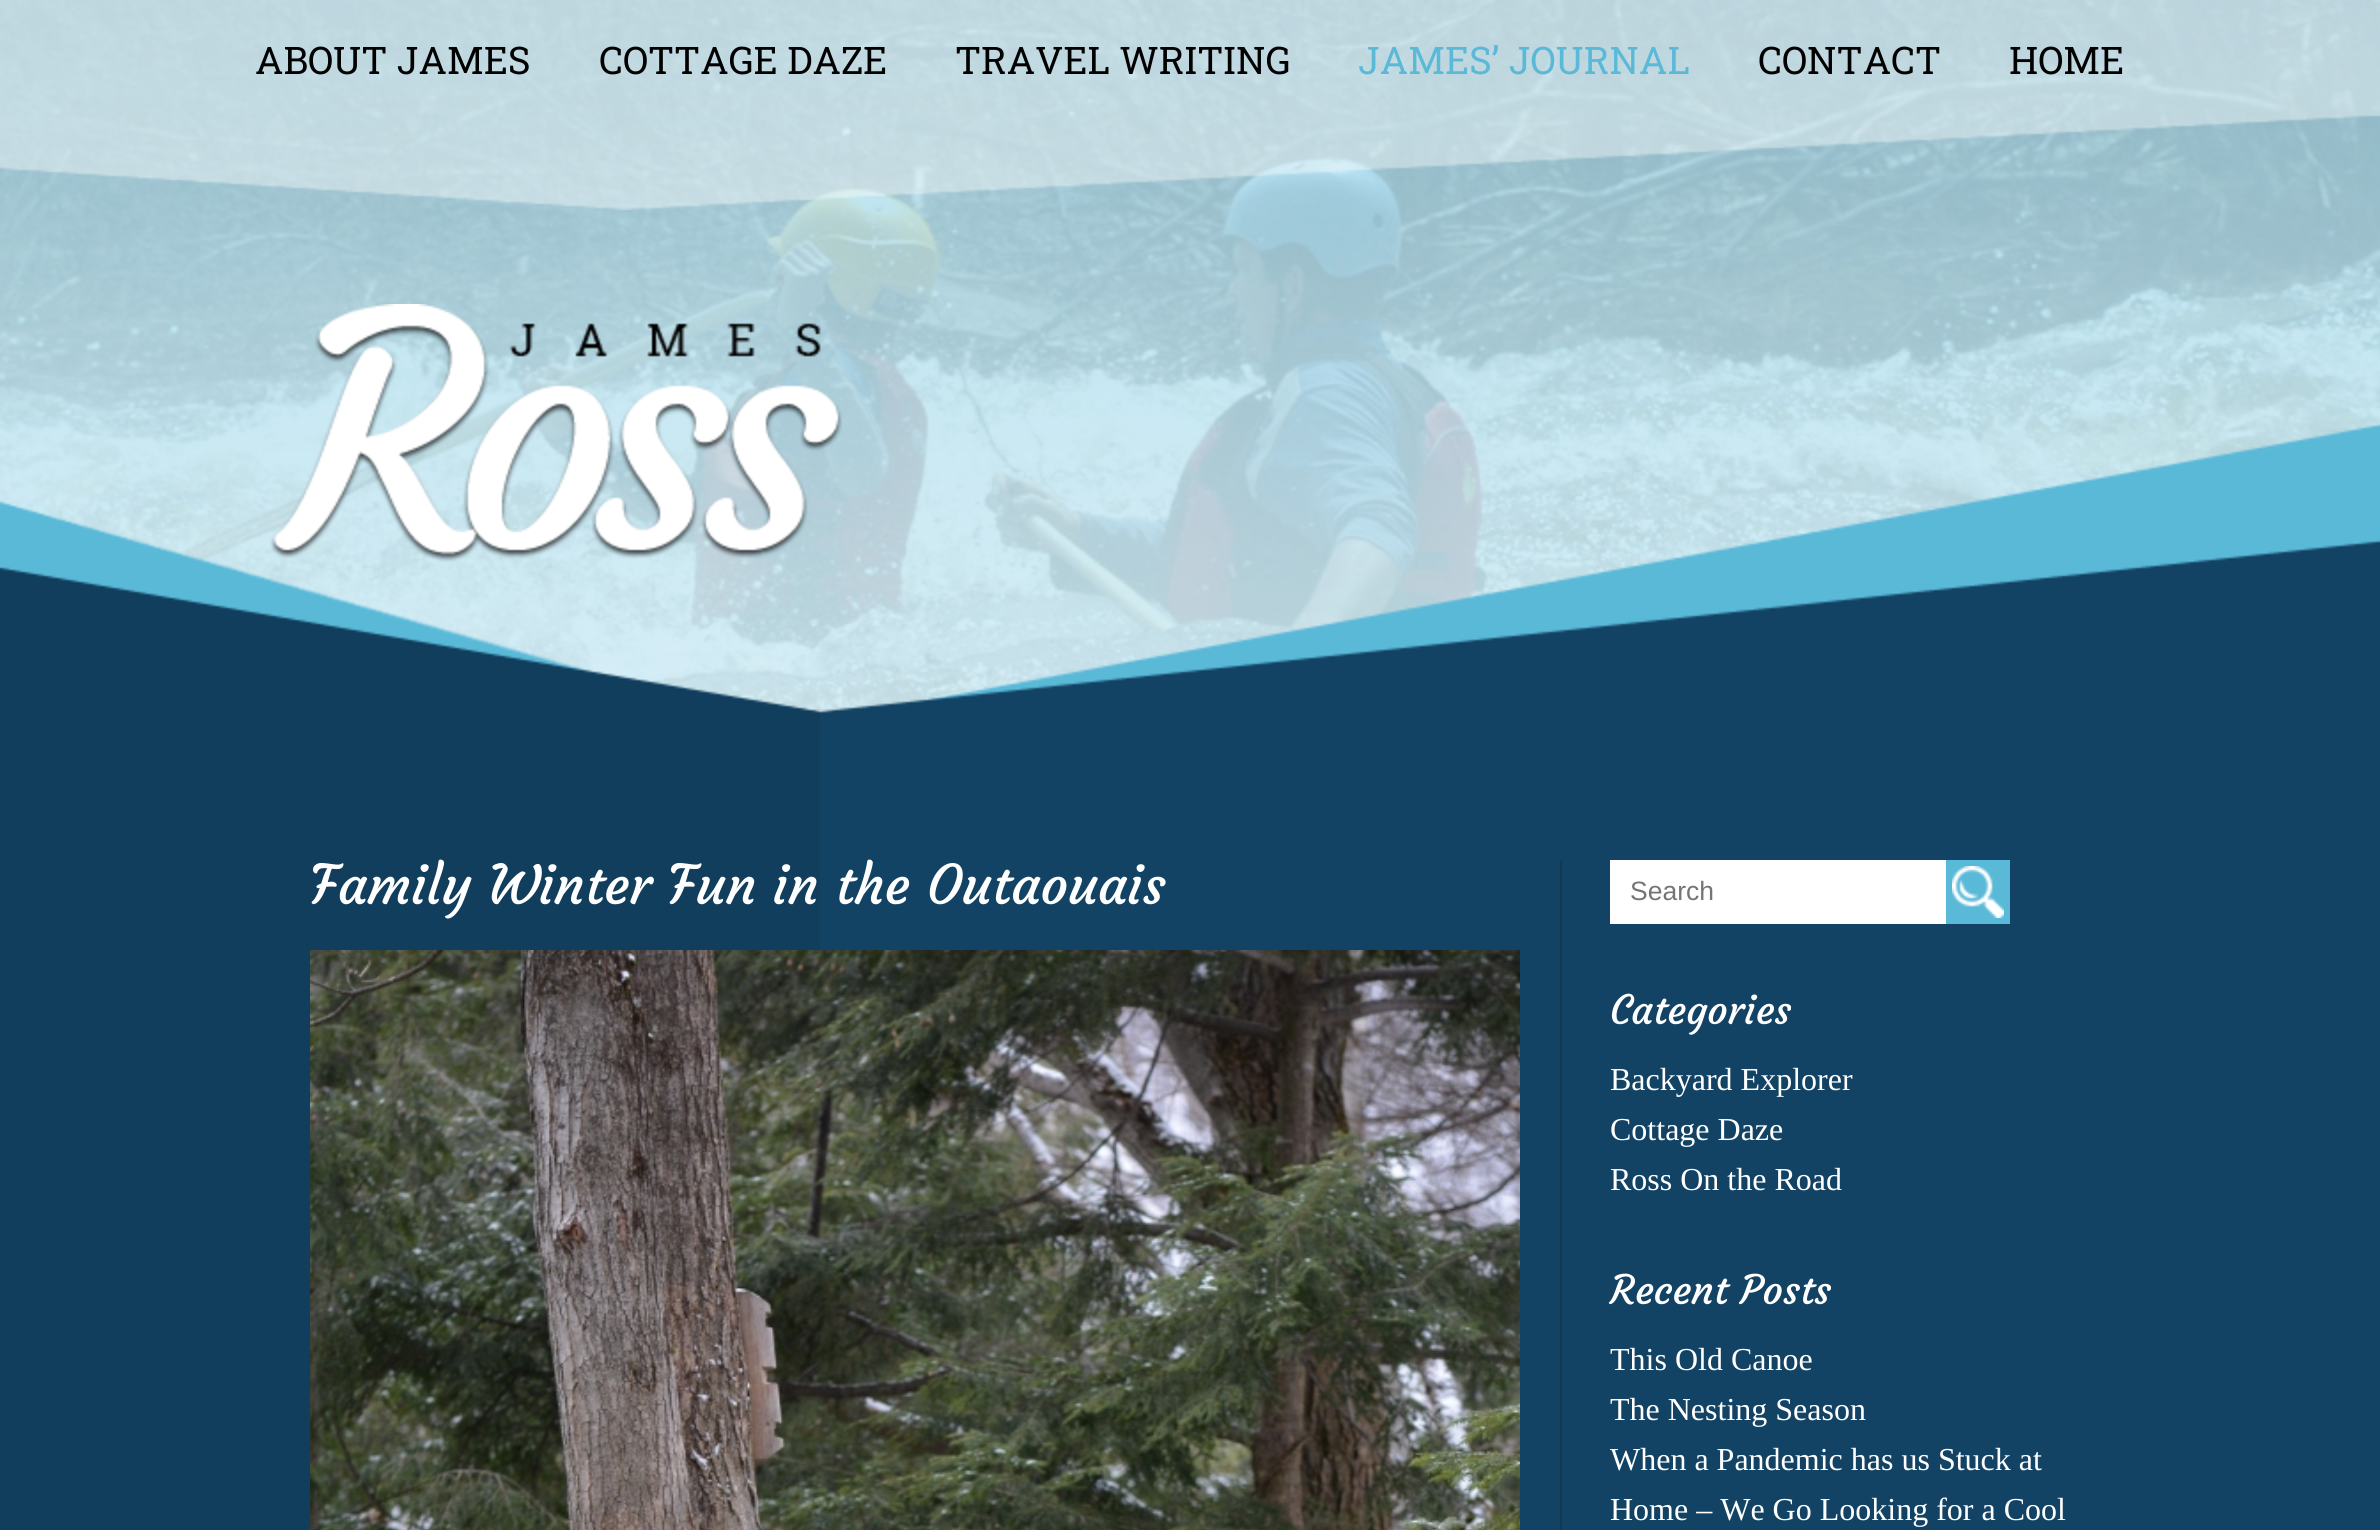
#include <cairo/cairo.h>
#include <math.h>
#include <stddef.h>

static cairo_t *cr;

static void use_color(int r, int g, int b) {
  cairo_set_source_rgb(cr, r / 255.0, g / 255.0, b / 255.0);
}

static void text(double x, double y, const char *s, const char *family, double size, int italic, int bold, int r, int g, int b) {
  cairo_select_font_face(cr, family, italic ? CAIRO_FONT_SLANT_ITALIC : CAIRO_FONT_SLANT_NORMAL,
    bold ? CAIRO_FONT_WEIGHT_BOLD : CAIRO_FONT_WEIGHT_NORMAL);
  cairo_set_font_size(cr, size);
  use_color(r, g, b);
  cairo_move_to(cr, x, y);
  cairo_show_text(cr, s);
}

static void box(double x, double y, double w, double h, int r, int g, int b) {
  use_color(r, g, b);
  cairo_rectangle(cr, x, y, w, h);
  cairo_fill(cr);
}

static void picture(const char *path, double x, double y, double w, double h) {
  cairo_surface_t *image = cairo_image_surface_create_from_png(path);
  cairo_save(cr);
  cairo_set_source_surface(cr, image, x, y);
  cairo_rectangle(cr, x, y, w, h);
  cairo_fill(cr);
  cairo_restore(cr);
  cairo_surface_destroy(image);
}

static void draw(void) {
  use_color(255, 255, 255);
  cairo_paint(cr);
  picture("img_02.png", 0, 0, 2380, 710);
  picture("img_01.png", 0, 0, 2380, 210);
  picture("img_04.png", 0, 423, 2380, 301);
  picture("img_03.png", 270, 304, 572, 258);
  picture("img_05.png", 0, 724, 2380, 806);
  box(1560, 860, 2, 670, 20, 56, 82);
  picture("img_06.png", 310, 950, 1210, 580);
  box(1610, 860, 336, 64, 255, 255, 255);
  box(1946, 860, 64, 64, 91, 185, 216);
  picture("img_07.png", 1952, 866, 52, 52);
  text(255, 74, "ABOUT JAMES", "Roboto Slab", 38, 0, 0, 1, 1, 1);
  text(599, 74, "COTTAGE DAZE", "Roboto Slab", 38, 0, 0, 1, 1, 1);
  text(955, 74, "TRAVEL WRITING", "Roboto Slab", 38, 0, 0, 1, 1, 1);
  text(1358, 74, "JAMES’ JOURNAL", "Roboto Slab", 38, 0, 0, 91, 185, 216);
  text(1758, 74, "CONTACT", "Roboto Slab", 38, 0, 0, 1, 1, 1);
  text(2009, 74, "HOME", "Roboto Slab", 38, 0, 0, 1, 1, 1);
  text(310, 904, "Family Winter Fun in the Outaouais", "Courgette", 54, 0, 0, 255, 255, 255);
  text(1630, 900, "Search", "Liberation Sans", 26.5, 0, 0, 117, 117, 117);
  text(1610, 1024, "Categories", "Courgette", 40, 0, 0, 255, 255, 255);
  text(1610, 1090, "Backyard Explorer", "Liberation Serif", 32, 0, 0, 255, 255, 255);
  text(1610, 1140, "Cottage Daze", "Liberation Serif", 32, 0, 0, 255, 255, 255);
  text(1610, 1190, "Ross On the Road", "Liberation Serif", 32, 0, 0, 255, 255, 255);
  text(1610, 1304, "Recent Posts", "Courgette", 40, 0, 0, 255, 255, 255);
  text(1610, 1370, "This Old Canoe", "Liberation Serif", 32, 0, 0, 255, 255, 255);
  text(1610, 1420, "The Nesting Season", "Liberation Serif", 32, 0, 0, 255, 255, 255);
  text(1610, 1470, "When a Pandemic has us Stuck at", "Liberation Serif", 32, 0, 0, 255, 255, 255);
  text(1610, 1520, "Home – We Go Looking for a Cool", "Liberation Serif", 32, 0, 0, 255, 255, 255);
}

int main(void) {
  cairo_surface_t *surface = cairo_image_surface_create(CAIRO_FORMAT_RGB24, 2380, 1530);
  cr = cairo_create(surface);
  cairo_font_options_t *options = cairo_font_options_create();
  cairo_font_options_set_hint_metrics(options, CAIRO_HINT_METRICS_OFF);
  cairo_font_options_set_hint_style(options, CAIRO_HINT_STYLE_NONE);
  cairo_set_font_options(cr, options);
  cairo_set_miter_limit(cr, 4);
  draw();
  cairo_surface_write_to_png(surface, "out.png");
  cairo_font_options_destroy(options);
  cairo_destroy(cr);
  cairo_surface_destroy(surface);
  return 0;
}
